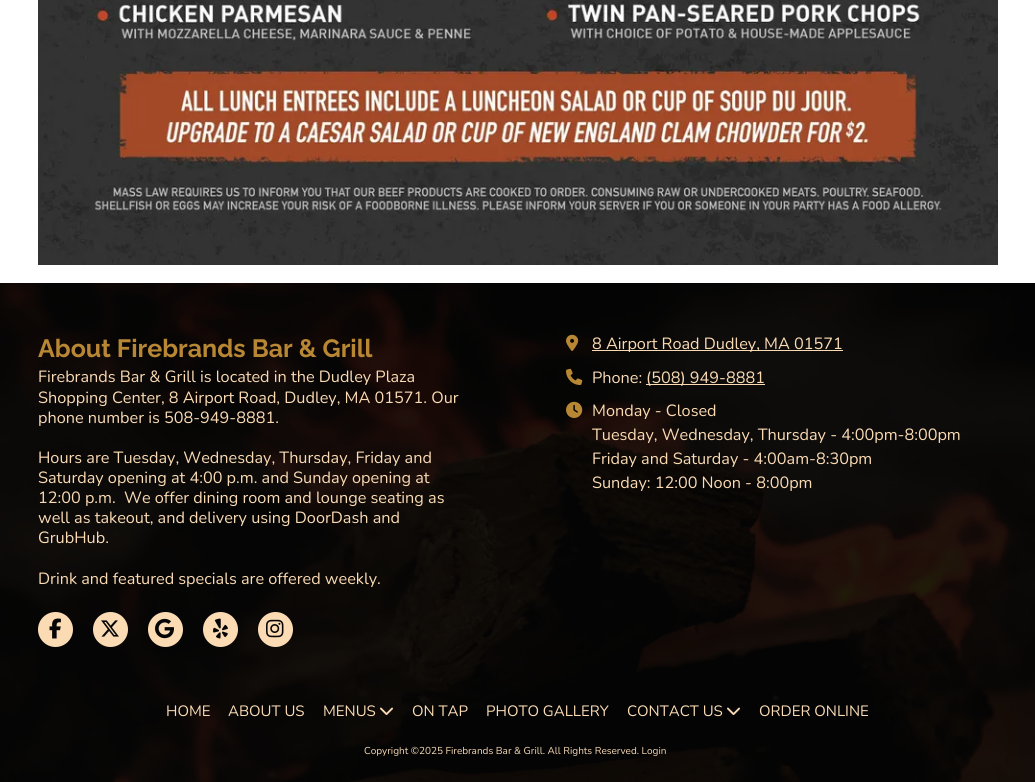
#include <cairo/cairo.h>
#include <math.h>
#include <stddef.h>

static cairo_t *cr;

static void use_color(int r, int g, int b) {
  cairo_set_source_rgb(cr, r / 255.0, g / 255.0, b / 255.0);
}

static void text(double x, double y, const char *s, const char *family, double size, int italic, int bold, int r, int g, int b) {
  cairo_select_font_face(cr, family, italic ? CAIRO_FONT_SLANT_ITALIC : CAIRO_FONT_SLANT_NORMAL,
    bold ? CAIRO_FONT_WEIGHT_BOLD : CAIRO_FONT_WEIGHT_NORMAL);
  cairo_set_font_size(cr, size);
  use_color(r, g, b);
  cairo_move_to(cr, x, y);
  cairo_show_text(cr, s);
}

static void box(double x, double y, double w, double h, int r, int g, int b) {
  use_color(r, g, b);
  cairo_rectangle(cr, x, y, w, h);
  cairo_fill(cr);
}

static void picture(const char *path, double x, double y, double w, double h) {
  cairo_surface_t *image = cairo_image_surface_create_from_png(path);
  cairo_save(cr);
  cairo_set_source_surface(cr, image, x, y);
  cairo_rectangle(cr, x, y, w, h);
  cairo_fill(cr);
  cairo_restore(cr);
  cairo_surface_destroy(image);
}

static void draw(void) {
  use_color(255, 255, 255);
  cairo_paint(cr);
  picture("img_01.png", 0, 283, 1035, 499);
  picture("img_02.png", 38, 0, 960, 265);
  cairo_set_source_rgba(cr, 0.02, 0.02, 0.02, 0.89);
  cairo_rectangle(cr, 0, 283, 1035, 499);
  cairo_fill(cr);
  use_color(250, 219, 180);
  cairo_arc(cr, 55.5, 629.5, 17.5, 0, 2 * M_PI);
  cairo_fill(cr);
  picture("img_03.png", 49, 618, 12, 21);
  cairo_arc(cr, 110.5, 629.5, 17.5, 0, 2 * M_PI);
  cairo_fill(cr);
  picture("img_04.png", 101, 620, 18, 17);
  cairo_arc(cr, 165.5, 629.5, 17.5, 0, 2 * M_PI);
  cairo_fill(cr);
  picture("img_05.png", 155, 618, 19, 21);
  cairo_arc(cr, 220.5, 629.5, 17.5, 0, 2 * M_PI);
  cairo_fill(cr);
  picture("img_06.png", 213, 618, 15, 21);
  cairo_arc(cr, 275.5, 629.5, 17.5, 0, 2 * M_PI);
  cairo_fill(cr);
  picture("img_07.png", 266, 619, 18, 19);
  picture("img_08.png", 566, 334, 13, 17);
  box(592, 350, 251, 1, 250, 219, 180);
  picture("img_09.png", 566, 368, 17, 17);
  box(646, 384, 119, 1, 250, 219, 180);
  picture("img_10.png", 566, 401, 17, 17);
  picture("img_11.png", 380, 707, 13, 8);
  picture("img_12.png", 727, 707, 13, 8);
  text(38, 357, "About Firebrands Bar & Grill", "Raleway", 25, 0, 1, 184, 135, 51);
  text(38, 382, "Firebrands Bar & Grill is located in the Dudley Plaza", "Nunito", 16.25, 0, 0, 250, 219, 180);
  text(38, 403, "Shopping Center, 8 Airport Road, Dudley, MA 01571. Our", "Nunito", 16.25, 0, 0, 250, 219, 180);
  text(38, 423, "phone number is 508-949-8881.", "Nunito", 16.25, 0, 0, 250, 219, 180);
  text(38, 463, "Hours are Tuesday, Wednesday, Thursday, Friday and", "Nunito", 16.25, 0, 0, 250, 219, 180);
  text(38, 483, "Saturday opening at 4:00 p.m. and Sunday opening at", "Nunito", 16.25, 0, 0, 250, 219, 180);
  text(38, 503, "12:00 p.m.  We offer dining room and lounge seating as", "Nunito", 16.25, 0, 0, 250, 219, 180);
  text(38, 523, "well as takeout, and delivery using DoorDash and", "Nunito", 16.25, 0, 0, 250, 219, 180);
  text(38, 543, "GrubHub.", "Nunito", 16.25, 0, 0, 250, 219, 180);
  text(38, 584, "Drink and featured specials are offered weekly.", "Nunito", 16.25, 0, 0, 250, 219, 180);
  text(592, 349, "8 Airport Road Dudley, MA 01571", "Nunito", 16.25, 0, 0, 250, 219, 180);
  text(592, 383, "Phone:", "Nunito", 16.25, 0, 0, 250, 219, 180);
  text(646, 383, "(508) 949-8881", "Nunito", 16.25, 0, 0, 250, 219, 180);
  text(592, 416, "Monday - Closed", "Nunito", 16.25, 0, 0, 250, 219, 180);
  text(592, 440, "Tuesday, Wednesday, Thursday - 4:00pm-8:00pm", "Nunito", 16.25, 0, 0, 250, 219, 180);
  text(592, 464, "Friday and Saturday - 4:00am-8:30pm", "Nunito", 16.25, 0, 0, 250, 219, 180);
  text(592, 488, "Sunday: 12:00 Noon - 8:00pm", "Nunito", 16.25, 0, 0, 250, 219, 180);
  text(166, 716, "HOME", "Nunito", 15, 0, 0, 250, 219, 180);
  text(228, 716, "ABOUT US", "Nunito", 15, 0, 0, 250, 219, 180);
  text(323, 716, "MENUS", "Nunito", 15, 0, 0, 250, 219, 180);
  text(412, 716, "ON TAP", "Nunito", 15, 0, 0, 250, 219, 180);
  text(486, 716, "PHOTO GALLERY", "Nunito", 15, 0, 0, 250, 219, 180);
  text(627, 716, "CONTACT US", "Nunito", 15, 0, 0, 250, 219, 180);
  text(759, 716, "ORDER ONLINE", "Nunito", 15, 0, 0, 250, 219, 180);
  text(364, 754, "Copyright ©2025 Firebrands Bar & Grill. All Rights Reserved. Login", "Nunito", 10, 0, 0, 250, 219, 180);
}

int main(void) {
  cairo_surface_t *surface = cairo_image_surface_create(CAIRO_FORMAT_RGB24, 1035, 782);
  cr = cairo_create(surface);
  cairo_font_options_t *options = cairo_font_options_create();
  cairo_font_options_set_hint_metrics(options, CAIRO_HINT_METRICS_OFF);
  cairo_font_options_set_hint_style(options, CAIRO_HINT_STYLE_NONE);
  cairo_set_font_options(cr, options);
  cairo_set_miter_limit(cr, 4);
  draw();
  cairo_surface_write_to_png(surface, "out.png");
  cairo_font_options_destroy(options);
  cairo_destroy(cr);
  cairo_surface_destroy(surface);
  return 0;
}
